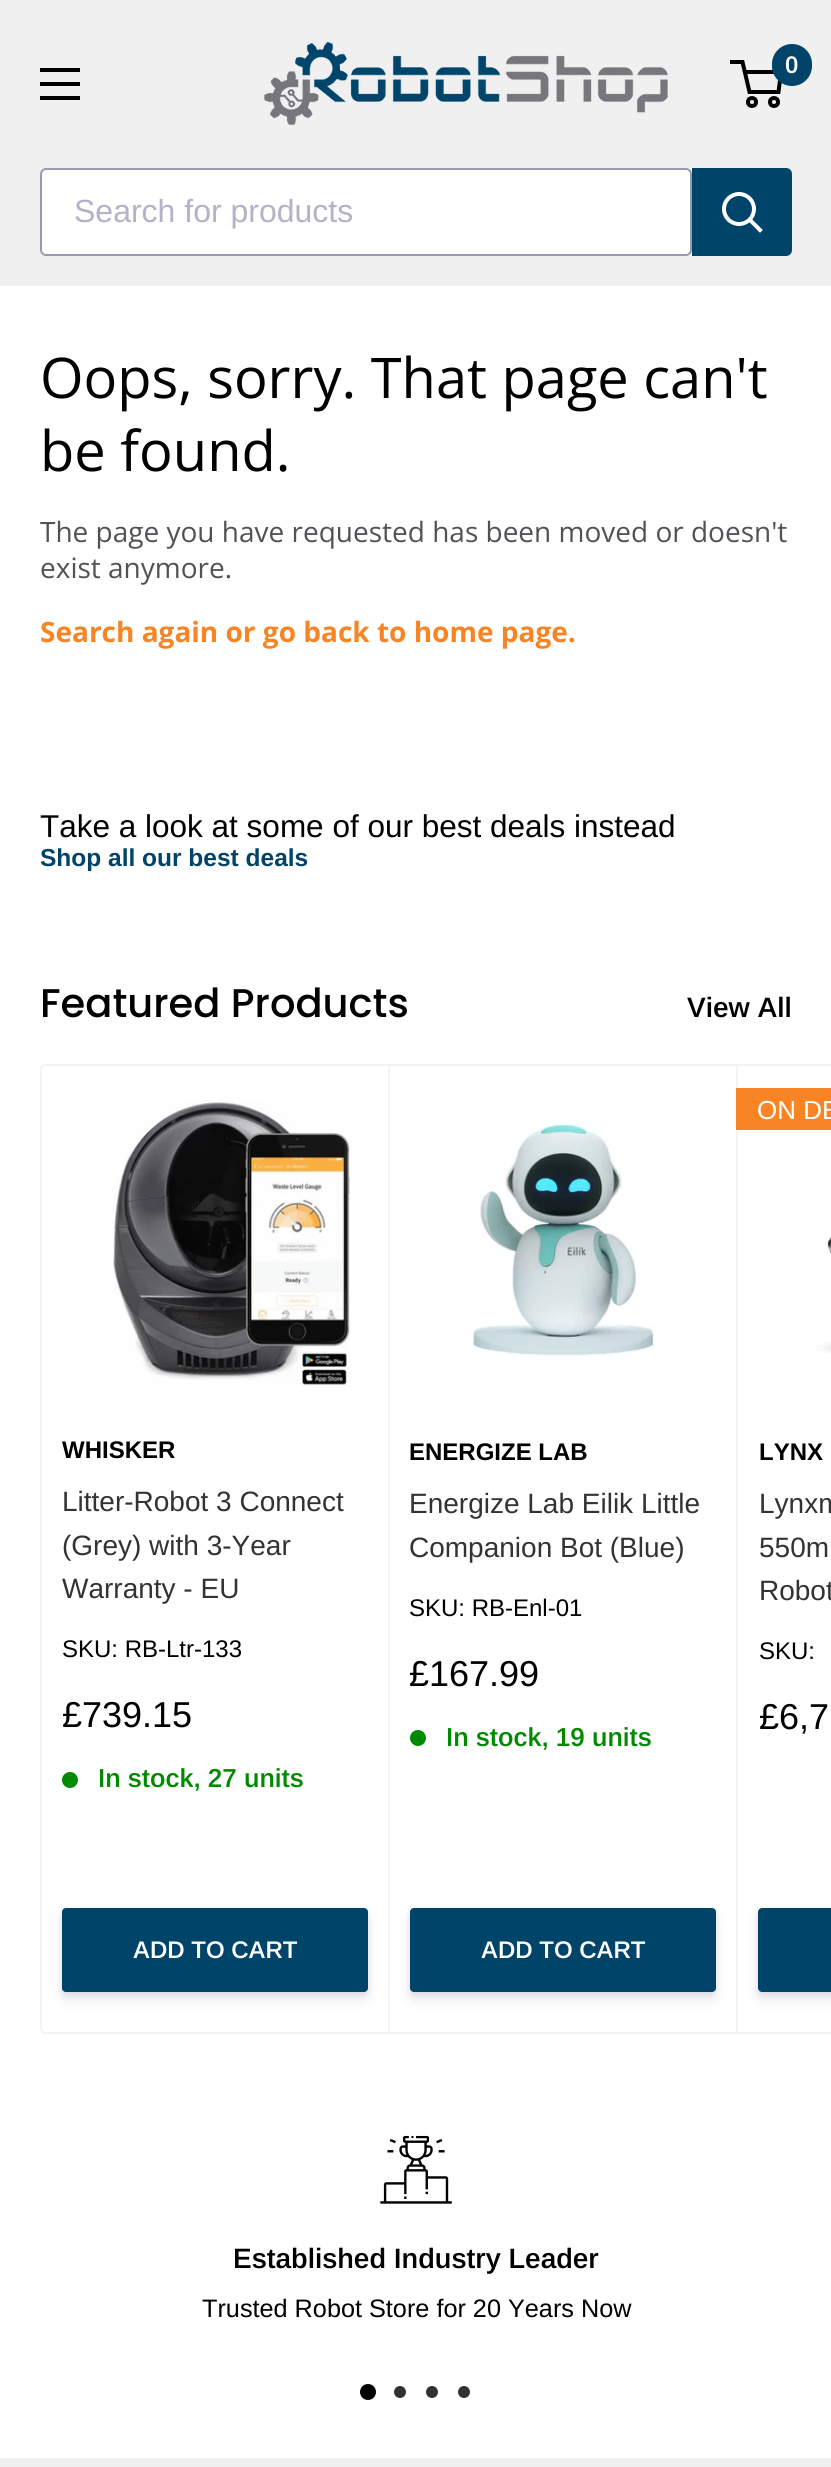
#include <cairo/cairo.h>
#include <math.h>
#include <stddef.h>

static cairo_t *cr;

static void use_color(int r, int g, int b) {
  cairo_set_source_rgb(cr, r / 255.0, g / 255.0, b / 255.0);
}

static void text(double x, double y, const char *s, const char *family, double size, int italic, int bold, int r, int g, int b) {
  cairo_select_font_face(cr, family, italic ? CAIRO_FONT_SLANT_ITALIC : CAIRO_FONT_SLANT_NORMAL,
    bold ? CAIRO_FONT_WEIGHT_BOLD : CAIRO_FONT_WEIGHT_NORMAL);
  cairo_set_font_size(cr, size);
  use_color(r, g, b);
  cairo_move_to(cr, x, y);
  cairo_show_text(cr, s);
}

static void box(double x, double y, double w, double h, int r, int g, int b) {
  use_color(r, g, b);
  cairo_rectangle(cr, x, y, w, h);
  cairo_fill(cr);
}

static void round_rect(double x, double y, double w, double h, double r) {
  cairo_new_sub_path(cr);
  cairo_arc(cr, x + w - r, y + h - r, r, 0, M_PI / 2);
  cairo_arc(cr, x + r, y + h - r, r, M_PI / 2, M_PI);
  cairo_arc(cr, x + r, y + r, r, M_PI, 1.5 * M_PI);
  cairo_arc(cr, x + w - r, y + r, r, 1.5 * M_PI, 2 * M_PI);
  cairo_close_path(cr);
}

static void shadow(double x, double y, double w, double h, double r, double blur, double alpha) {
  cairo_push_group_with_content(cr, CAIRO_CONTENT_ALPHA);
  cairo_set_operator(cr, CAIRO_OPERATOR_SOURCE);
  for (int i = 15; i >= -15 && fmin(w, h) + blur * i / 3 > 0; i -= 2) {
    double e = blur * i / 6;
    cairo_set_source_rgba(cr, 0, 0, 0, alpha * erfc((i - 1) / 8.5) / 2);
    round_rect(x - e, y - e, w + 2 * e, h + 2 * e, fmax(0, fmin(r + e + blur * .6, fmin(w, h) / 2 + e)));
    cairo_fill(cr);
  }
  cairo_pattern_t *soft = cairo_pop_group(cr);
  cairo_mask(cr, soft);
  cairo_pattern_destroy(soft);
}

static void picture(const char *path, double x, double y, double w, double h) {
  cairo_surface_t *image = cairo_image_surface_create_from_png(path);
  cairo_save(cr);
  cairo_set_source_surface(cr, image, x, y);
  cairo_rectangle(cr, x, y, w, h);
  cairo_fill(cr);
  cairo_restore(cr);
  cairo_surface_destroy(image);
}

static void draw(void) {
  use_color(255, 255, 255);
  cairo_paint(cr);
  box(0, 0, 831, 286, 240, 240, 240);
  picture("img_01.png", 264, 41, 404, 84);
  cairo_arc(cr, 752, 102, 4, 0, 2 * M_PI);
  use_color(0, 0, 0);
  cairo_set_line_width(cr, 4);
  cairo_stroke(cr);
  cairo_arc(cr, 774, 102, 4, 0, 2 * M_PI);
  cairo_stroke(cr);
  cairo_new_path(cr);
  cairo_move_to(cr, 744.5, 72);
  cairo_line_to(cr, 781, 72);
  cairo_line_to(cr, 778.5, 92);
  cairo_line_to(cr, 749.5, 92);
  cairo_line_to(cr, 742.5, 62);
  cairo_line_to(cr, 730, 62);
  cairo_stroke(cr);
  use_color(0, 68, 106);
  round_rect(772, 44, 40, 42, 20);
  cairo_fill(cr);
  use_color(0, 0, 0);
  cairo_set_fill_rule(cr, CAIRO_FILL_RULE_EVEN_ODD);
  cairo_new_path(cr);
  cairo_move_to(cr, 40, 96);
  cairo_line_to(cr, 80, 96);
  cairo_line_to(cr, 80, 100);
  cairo_line_to(cr, 40, 100);
  cairo_close_path(cr);
  cairo_move_to(cr, 40, 68);
  cairo_line_to(cr, 80, 68);
  cairo_line_to(cr, 80, 72);
  cairo_line_to(cr, 40, 72);
  cairo_close_path(cr);
  cairo_move_to(cr, 40, 82);
  cairo_line_to(cr, 80, 82);
  cairo_line_to(cr, 80, 86);
  cairo_line_to(cr, 40, 86);
  cairo_close_path(cr);
  cairo_fill(cr);
  use_color(255, 255, 255);
  round_rect(40, 168, 752, 88, 6);
  cairo_fill(cr);
  round_rect(41, 169, 650, 86, 5);
  cairo_fill_preserve(cr);
  use_color(153, 152, 181);
  cairo_set_line_width(cr, 2);
  cairo_stroke(cr);
  use_color(0, 68, 106);
  cairo_new_path(cr);
  cairo_move_to(cr, 692, 168);
  cairo_line_to(cr, 786, 168);
  cairo_curve_to(cr, 789.5, 168, 792, 170.5, 792, 174);
  cairo_line_to(cr, 792, 250);
  cairo_curve_to(cr, 792, 253.5, 789.5, 256, 786, 256);
  cairo_line_to(cr, 692, 256);
  cairo_close_path(cr);
  cairo_fill(cr);
  cairo_new_path(cr);
  cairo_move_to(cr, 760, 230);
  cairo_line_to(cr, 750, 220);
  use_color(255, 255, 255);
  cairo_set_line_width(cr, 4);
  cairo_set_line_cap(cr, CAIRO_LINE_CAP_SQUARE);
  cairo_stroke(cr);
  cairo_arc(cr, 739, 209, 15, 0, 2 * M_PI);
  cairo_set_line_cap(cr, CAIRO_LINE_CAP_BUTT);
  cairo_stroke(cr);
  cairo_new_path(cr);
  cairo_move_to(cr, 46, 1065);
  cairo_line_to(cr, 389, 1065);
  cairo_line_to(cr, 389, 2033);
  cairo_line_to(cr, 46, 2033);
  cairo_curve_to(cr, 43, 2033, 41, 2031, 41, 2028);
  cairo_line_to(cr, 41, 1070);
  cairo_curve_to(cr, 41, 1067, 43, 1065, 46, 1065);
  cairo_close_path(cr);
  use_color(241, 245, 244);
  cairo_set_line_width(cr, 2);
  cairo_stroke(cr);
  picture("img_02.png", 113, 1100, 238, 287);
  use_color(0, 138, 0);
  cairo_arc(cr, 70, 1780, 8, 0, 2 * M_PI);
  cairo_fill(cr);
  use_color(0, 0, 0);
  shadow(62, 1910, 306, 84, 4, 3, 0.08);
  use_color(50, 50, 93);
  shadow(62, 1916, 306, 84, 4, 6, 0.11);
  use_color(0, 68, 106);
  round_rect(62, 1908, 306, 84, 4);
  cairo_fill(cr);
  box(42, 2032, 3, 2, 241, 245, 244);
  box(390, 1064, 441, 2, 241, 245, 244);
  box(736, 1064, 2, 970, 241, 245, 244);
  box(390, 2032, 441, 2, 241, 245, 244);
  picture("img_03.png", 473, 1123, 182, 234);
  use_color(0, 138, 0);
  cairo_arc(cr, 418, 1738, 8, 0, 2 * M_PI);
  cairo_fill(cr);
  use_color(0, 0, 0);
  shadow(410, 1910, 306, 84, 4, 3, 0.08);
  use_color(50, 50, 93);
  shadow(410, 1916, 306, 84, 4, 6, 0.11);
  use_color(0, 68, 106);
  round_rect(410, 1908, 306, 84, 4);
  cairo_fill(cr);
  box(736, 1088, 95, 42, 249, 132, 36);
  picture("img_04.png", 816, 1237, 15, 116);
  use_color(0, 0, 0);
  shadow(758, 1910, 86, 84, 4, 3, 0.08);
  use_color(50, 50, 93);
  shadow(758, 1916, 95, 84, 4, 6, 0.11);
  use_color(0, 68, 106);
  cairo_new_path(cr);
  cairo_move_to(cr, 762, 1908);
  cairo_line_to(cr, 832, 1908);
  cairo_line_to(cr, 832, 1992);
  cairo_line_to(cr, 762, 1992);
  cairo_curve_to(cr, 760, 1992, 758, 1990, 758, 1988);
  cairo_line_to(cr, 758, 1912);
  cairo_curve_to(cr, 758, 1910, 760, 1908, 762, 1908);
  cairo_close_path(cr);
  cairo_fill(cr);
  picture("img_05.png", 380, 2135, 72, 69);
  use_color(0, 0, 0);
  cairo_arc(cr, 368, 2392, 8, 0, 2 * M_PI);
  cairo_fill(cr);
  use_color(51, 51, 51);
  cairo_arc(cr, 400, 2392, 6, 0, 2 * M_PI);
  cairo_fill(cr);
  cairo_arc(cr, 432, 2392, 6, 0, 2 * M_PI);
  cairo_fill(cr);
  cairo_arc(cr, 464, 2392, 6, 0, 2 * M_PI);
  cairo_fill(cr);
  box(0, 2458, 831, 9, 240, 240, 240);
  text(785, 73, "0", "Arimo SemiBold", 24, 0, 0, 255, 255, 255);
  text(74, 222, "Search for products", "Arimo", 32, 0, 0, 179, 178, 200);
  text(40, 398, "Oops, sorry. That page can't", "Open Sans", 56, 0, 0, 0, 0, 0);
  text(40, 471, "be found.", "Open Sans", 56, 0, 0, 0, 0, 0);
  text(40, 542, "The page you have requested has been moved or doesn't", "Open Sans", 28, 0, 0, 82, 81, 85);
  text(40, 578, "exist anymore.", "Open Sans", 28, 0, 0, 82, 81, 85);
  text(40, 642, "Search again or go back to home page.", "Open Sans", 28, 0, 1, 249, 132, 36);
  text(40, 837, "Take a look at some of our best deals instead", "Arimo", 31.5, 0, 0, 0, 0, 0);
  text(40, 866, "Shop all our best deals", "Arimo", 24.5, 0, 1, 0, 68, 106);
  text(40, 1017, "Featured Products", "Poppins Medium", 40, 0, 0, 0, 0, 0);
  text(687, 1017, "View All", "Arimo SemiBold", 28, 0, 0, 0, 0, 0);
  text(62, 1458, "WHISKER", "Arimo", 24, 0, 1, 0, 0, 0);
  text(62, 1511, "Litter-Robot 3 Connect", "Arimo", 28, 0, 0, 51, 51, 51);
  text(62, 1555, "(Grey) with 3-Year", "Arimo", 28, 0, 0, 51, 51, 51);
  text(62, 1598, "Warranty - EU", "Arimo", 28, 0, 0, 51, 51, 51);
  text(62, 1657, "SKU: RB-Ltr-133", "Arimo", 24, 0, 0, 0, 0, 0);
  text(62, 1727, "£739.15", "Arimo", 36, 0, 0, 0, 0, 0);
  text(98, 1787, "In stock, 27 units", "Arimo SemiBold", 26, 0, 0, 0, 138, 0);
  text(133, 1958, "ADD TO CART", "Arimo SemiBold", 24, 0, 0, 255, 255, 255);
  text(409, 1460, "ENERGIZE LAB", "Arimo", 24, 0, 1, 0, 0, 0);
  text(409, 1513, "Energize Lab Eilik Little", "Arimo", 28, 0, 0, 51, 51, 51);
  text(409, 1557, "Companion Bot (Blue)", "Arimo", 28, 0, 0, 51, 51, 51);
  text(409, 1616, "SKU: RB-Enl-01", "Arimo", 24, 0, 0, 0, 0, 0);
  text(409, 1686, "£167.99", "Arimo", 36, 0, 0, 0, 0, 0);
  text(446, 1746, "In stock, 19 units", "Arimo SemiBold", 26, 0, 0, 0, 138, 0);
  text(481, 1958, "ADD TO CART", "Arimo SemiBold", 24, 0, 0, 255, 255, 255);
  text(757, 1119, "ON DE", "Arimo", 26, 0, 0, 255, 255, 255);
  text(759, 1460, "LYNX", "Arimo", 24, 0, 1, 0, 0, 0);
  text(759, 1513, "Lynxm", "Arimo", 28, 0, 0, 51, 51, 51);
  text(759, 1557, "550m", "Arimo", 28, 0, 0, 51, 51, 51);
  text(759, 1600, "Robot", "Arimo", 28, 0, 0, 51, 51, 51);
  text(759, 1659, "SKU:", "Arimo", 24, 0, 0, 0, 0, 0);
  text(759, 1729, "£6,7", "Arimo", 36, 0, 0, 0, 0, 0);
  text(233, 2268, "Established Industry Leader", "Arimo SemiBold", 28, 0, 0, 0, 0, 0);
  text(202, 2317, "Trusted Robot Store for 20 Years Now", "Arimo", 25.25, 0, 0, 0, 0, 0);
}

int main(void) {
  cairo_surface_t *surface = cairo_image_surface_create(CAIRO_FORMAT_RGB24, 831, 2467);
  cr = cairo_create(surface);
  cairo_font_options_t *options = cairo_font_options_create();
  cairo_font_options_set_hint_metrics(options, CAIRO_HINT_METRICS_OFF);
  cairo_font_options_set_hint_style(options, CAIRO_HINT_STYLE_NONE);
  cairo_set_font_options(cr, options);
  cairo_set_miter_limit(cr, 4);
  draw();
  cairo_surface_write_to_png(surface, "out.png");
  cairo_font_options_destroy(options);
  cairo_destroy(cr);
  cairo_surface_destroy(surface);
  return 0;
}
